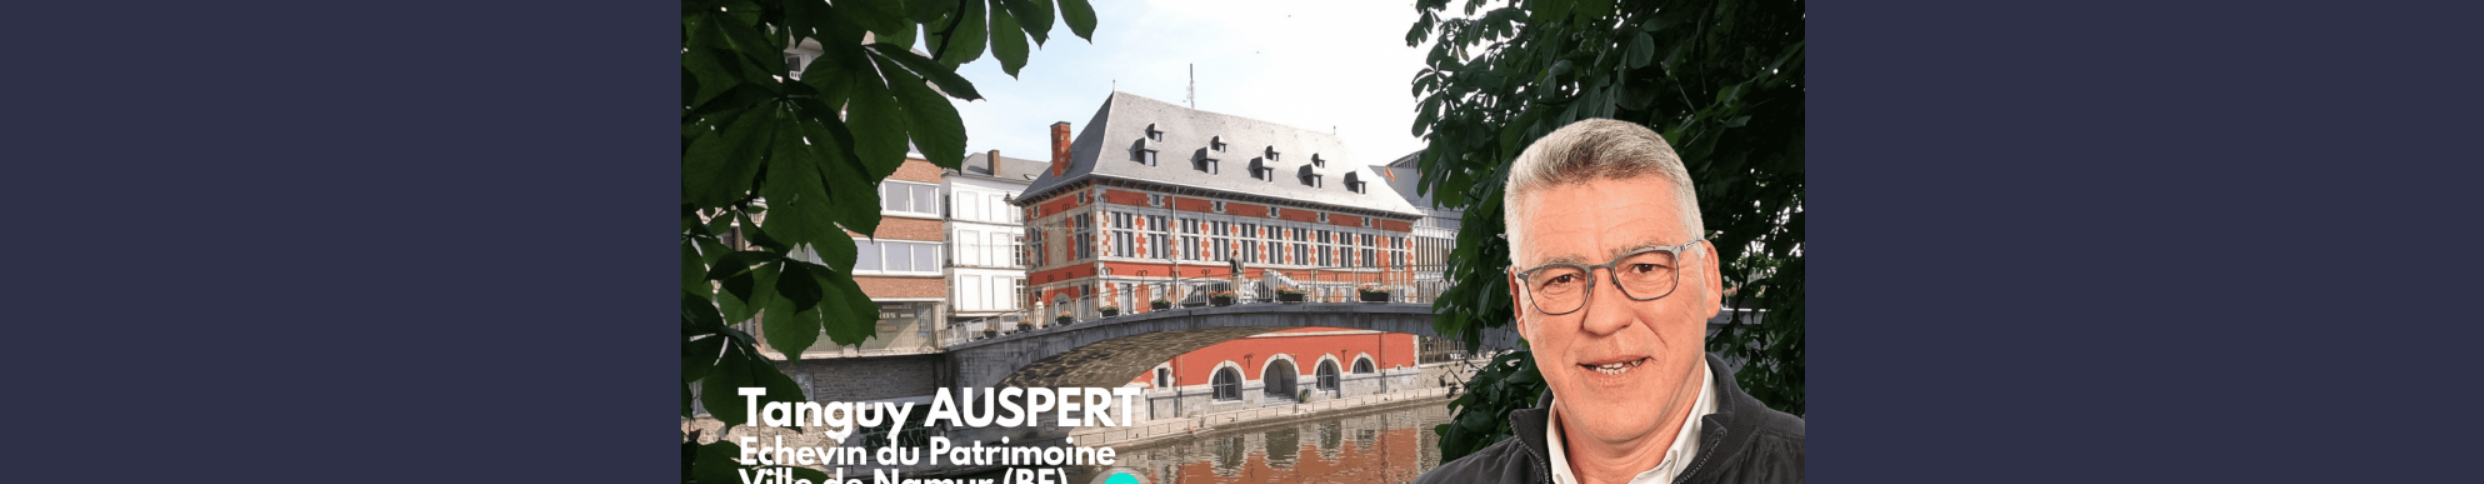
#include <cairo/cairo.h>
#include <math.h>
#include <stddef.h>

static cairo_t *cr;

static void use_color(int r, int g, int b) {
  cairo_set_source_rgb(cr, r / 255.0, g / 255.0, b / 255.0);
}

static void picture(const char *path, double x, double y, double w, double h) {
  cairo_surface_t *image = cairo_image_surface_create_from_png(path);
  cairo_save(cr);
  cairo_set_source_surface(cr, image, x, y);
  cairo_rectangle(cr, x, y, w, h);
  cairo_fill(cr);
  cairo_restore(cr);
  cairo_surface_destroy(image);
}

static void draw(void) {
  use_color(46, 48, 71);
  cairo_paint(cr);
  picture("img_01.png", 681, 0, 1124, 484);
}

int main(void) {
  cairo_surface_t *surface = cairo_image_surface_create(CAIRO_FORMAT_RGB24, 2484, 484);
  cr = cairo_create(surface);
  cairo_font_options_t *options = cairo_font_options_create();
  cairo_font_options_set_hint_metrics(options, CAIRO_HINT_METRICS_OFF);
  cairo_font_options_set_hint_style(options, CAIRO_HINT_STYLE_NONE);
  cairo_set_font_options(cr, options);
  cairo_set_miter_limit(cr, 4);
  draw();
  cairo_surface_write_to_png(surface, "out.png");
  cairo_font_options_destroy(options);
  cairo_destroy(cr);
  cairo_surface_destroy(surface);
  return 0;
}
